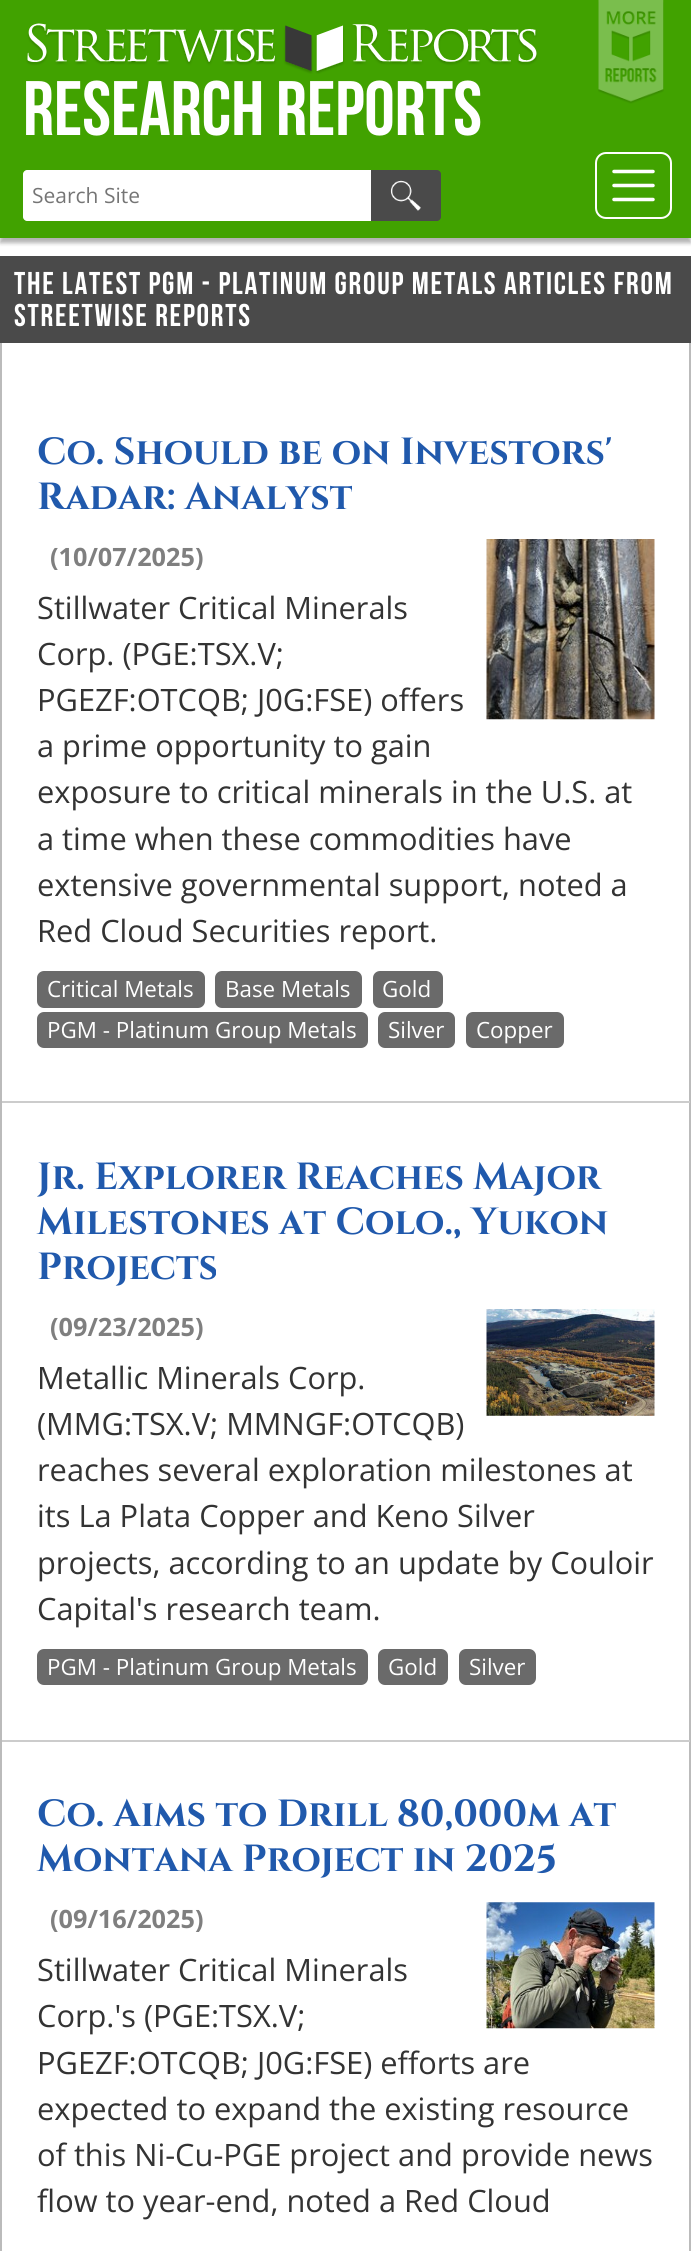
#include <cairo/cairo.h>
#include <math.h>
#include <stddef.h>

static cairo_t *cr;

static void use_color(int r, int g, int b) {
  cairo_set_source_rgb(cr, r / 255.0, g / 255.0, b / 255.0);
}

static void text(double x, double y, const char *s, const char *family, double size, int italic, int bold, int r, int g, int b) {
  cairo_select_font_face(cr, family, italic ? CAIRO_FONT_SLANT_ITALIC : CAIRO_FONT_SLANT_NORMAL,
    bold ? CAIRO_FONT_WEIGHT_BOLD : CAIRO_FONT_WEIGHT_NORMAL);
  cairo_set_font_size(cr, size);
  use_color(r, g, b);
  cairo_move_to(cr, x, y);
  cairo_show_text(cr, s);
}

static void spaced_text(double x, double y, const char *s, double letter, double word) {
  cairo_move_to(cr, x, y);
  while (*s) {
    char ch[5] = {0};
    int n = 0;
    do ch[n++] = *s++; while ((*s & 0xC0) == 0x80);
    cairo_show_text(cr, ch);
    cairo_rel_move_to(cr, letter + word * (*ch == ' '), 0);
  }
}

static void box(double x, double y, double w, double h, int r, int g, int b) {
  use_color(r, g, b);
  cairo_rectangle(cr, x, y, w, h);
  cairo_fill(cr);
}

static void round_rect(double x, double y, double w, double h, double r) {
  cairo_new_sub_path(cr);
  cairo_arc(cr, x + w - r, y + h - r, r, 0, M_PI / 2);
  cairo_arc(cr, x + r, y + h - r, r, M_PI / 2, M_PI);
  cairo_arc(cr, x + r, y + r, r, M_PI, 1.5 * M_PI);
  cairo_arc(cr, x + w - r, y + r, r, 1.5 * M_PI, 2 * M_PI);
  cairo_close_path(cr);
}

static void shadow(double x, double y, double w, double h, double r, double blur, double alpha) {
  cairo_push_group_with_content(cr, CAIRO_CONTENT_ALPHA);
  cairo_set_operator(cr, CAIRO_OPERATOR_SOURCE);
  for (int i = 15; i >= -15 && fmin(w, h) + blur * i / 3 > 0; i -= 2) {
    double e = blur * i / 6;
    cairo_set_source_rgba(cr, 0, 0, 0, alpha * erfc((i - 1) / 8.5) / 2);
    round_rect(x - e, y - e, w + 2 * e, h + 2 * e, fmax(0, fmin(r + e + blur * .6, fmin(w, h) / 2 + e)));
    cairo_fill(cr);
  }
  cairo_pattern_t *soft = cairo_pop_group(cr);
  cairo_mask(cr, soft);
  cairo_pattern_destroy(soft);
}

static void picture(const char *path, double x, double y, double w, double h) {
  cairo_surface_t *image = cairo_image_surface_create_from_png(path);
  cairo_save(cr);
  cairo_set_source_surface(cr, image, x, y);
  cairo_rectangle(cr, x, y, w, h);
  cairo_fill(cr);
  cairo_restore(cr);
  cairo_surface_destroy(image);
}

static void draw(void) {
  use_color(255, 255, 255);
  cairo_paint(cr);
  use_color(0, 0, 0);
  shadow(0, 5, 691, 238, 0, 2, 0.3);
  box(0, 0, 691, 238, 65, 162, 0);
  picture("img_01.png", 598, 0, 66, 104);
  picture("img_02.png", 26, 23, 512, 51);
  use_color(255, 255, 255);
  cairo_new_path(cr);
  cairo_move_to(cr, 27, 170);
  cairo_line_to(cr, 373, 170);
  cairo_line_to(cr, 373, 221);
  cairo_line_to(cr, 27, 221);
  cairo_curve_to(cr, 25, 221, 23, 219, 23, 217);
  cairo_line_to(cr, 23, 174);
  cairo_curve_to(cr, 23, 172, 25, 170, 27, 170);
  cairo_close_path(cr);
  cairo_fill(cr);
  use_color(74, 74, 74);
  cairo_new_path(cr);
  cairo_move_to(cr, 371, 170);
  cairo_line_to(cr, 437, 170);
  cairo_curve_to(cr, 439, 170, 441, 172, 441, 174);
  cairo_line_to(cr, 441, 217);
  cairo_curve_to(cr, 441, 219, 439, 221, 437, 221);
  cairo_line_to(cr, 371, 221);
  cairo_close_path(cr);
  cairo_fill(cr);
  picture("img_03.png", 390, 180, 31, 31);
  round_rect(596, 153, 75, 65, 10);
  use_color(255, 255, 255);
  cairo_stroke(cr);
  cairo_new_path(cr);
  cairo_move_to(cr, 614, 171.5);
  cairo_line_to(cr, 653, 171.5);
  cairo_move_to(cr, 614, 185.5);
  cairo_line_to(cr, 653, 185.5);
  cairo_move_to(cr, 614, 199.5);
  cairo_line_to(cr, 653, 199.5);
  cairo_set_line_width(cr, 3.5);
  cairo_set_line_cap(cr, CAIRO_LINE_CAP_ROUND);
  cairo_stroke(cr);
  cairo_rectangle(cr, 1, 257, 689, 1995);
  use_color(187, 187, 187);
  cairo_set_line_width(cr, 2);
  cairo_set_line_cap(cr, CAIRO_LINE_CAP_BUTT);
  cairo_stroke(cr);
  box(0, 256, 691, 87, 74, 74, 74);
  box(2, 1101, 688, 2, 204, 204, 204);
  picture("img_04.png", 486, 539, 169, 181);
  use_color(106, 106, 106);
  round_rect(37, 971, 168, 37, 7);
  cairo_fill(cr);
  round_rect(215, 971, 147, 37, 7);
  cairo_fill(cr);
  round_rect(373, 971, 70, 37, 7);
  cairo_fill(cr);
  round_rect(37, 1012, 331, 36, 7);
  cairo_fill(cr);
  round_rect(378, 1012, 77, 36, 7);
  cairo_fill(cr);
  round_rect(466, 1012, 98, 36, 7);
  cairo_fill(cr);
  box(2, 1740, 688, 2, 204, 204, 204);
  picture("img_05.png", 486, 1309, 169, 107);
  use_color(106, 106, 106);
  round_rect(37, 1649, 331, 36, 7);
  cairo_fill(cr);
  round_rect(378, 1649, 70, 36, 7);
  cairo_fill(cr);
  round_rect(459, 1649, 77, 36, 7);
  cairo_fill(cr);
  picture("img_06.png", 486, 1902, 169, 127);
  text(23, 135, "Research Reports", "Bebas Neue", 77, 0, 0, 255, 255, 255);
  text(32, 203, "Search Site", "Open Sans", 21, 0, 0, 117, 117, 117);
  cairo_select_font_face(cr, "Bebas Neue", CAIRO_FONT_SLANT_NORMAL, CAIRO_FONT_WEIGHT_NORMAL);
  cairo_set_font_size(cr, 31.5);
  use_color(255, 255, 255);
  spaced_text(14, 294, "The Latest PGM - Platinum Group Metals Articles from", 1.75, 0);
  spaced_text(14, 326, "Streetwise Reports", 1.75, 0);
  text(37, 464, "Co. Should be on Investors'", "Cinzel", 37.75, 0, 1, 32, 89, 172);
  text(37, 509, "Radar: Analyst", "Cinzel", 37.75, 0, 1, 32, 89, 172);
  text(50, 566, "(10/07/2025)", "Open Sans", 25.25, 0, 1, 127, 127, 127);
  text(37, 619, "Stillwater Critical Minerals", "Open Sans", 30.8, 0, 0, 51, 51, 51);
  text(37, 665, "Corp. (PGE:TSX.V;", "Open Sans", 30.8, 0, 0, 51, 51, 51);
  text(37, 711, "PGEZF:OTCQB; J0G:FSE) offers", "Open Sans", 30.8, 0, 0, 51, 51, 51);
  text(37, 757, "a prime opportunity to gain", "Open Sans", 30.8, 0, 0, 51, 51, 51);
  text(37, 803, "exposure to critical minerals in the U.S. at", "Open Sans", 30.8, 0, 0, 51, 51, 51);
  text(37, 850, "a time when these commodities have", "Open Sans", 30.8, 0, 0, 51, 51, 51);
  text(37, 896, "extensive governmental support, noted a", "Open Sans", 30.8, 0, 0, 51, 51, 51);
  text(37, 942, "Red Cloud Securities report.", "Open Sans", 30.8, 0, 0, 51, 51, 51);
  text(47, 997, "Critical Metals", "Open Sans", 22.4, 0, 0, 255, 255, 255);
  text(225, 997, "Base Metals", "Open Sans", 22.4, 0, 0, 255, 255, 255);
  text(382, 997, "Gold", "Open Sans", 22.4, 0, 0, 255, 255, 255);
  text(47, 1038, "PGM - Platinum Group Metals", "Open Sans", 22.4, 0, 0, 255, 255, 255);
  text(388, 1038, "Silver", "Open Sans", 22.4, 0, 0, 255, 255, 255);
  text(476, 1038, "Copper", "Open Sans", 22.4, 0, 0, 255, 255, 255);
  text(37, 1189, "Jr. Explorer Reaches Major", "Cinzel", 37.75, 0, 1, 32, 89, 172);
  text(37, 1234, "Milestones at Colo., Yukon", "Cinzel", 37.75, 0, 1, 32, 89, 172);
  text(37, 1279, "Projects", "Cinzel", 37.75, 0, 1, 32, 89, 172);
  text(50, 1336, "(09/23/2025)", "Open Sans", 25.25, 0, 1, 127, 127, 127);
  text(37, 1389, "Metallic Minerals Corp.", "Open Sans", 30.8, 0, 0, 51, 51, 51);
  text(37, 1435, "(MMG:TSX.V; MMNGF:OTCQB)", "Open Sans", 30.8, 0, 0, 51, 51, 51);
  text(37, 1481, "reaches several exploration milestones at", "Open Sans", 30.8, 0, 0, 51, 51, 51);
  text(37, 1527, "its La Plata Copper and Keno Silver", "Open Sans", 30.8, 0, 0, 51, 51, 51);
  text(37, 1574, "projects, according to an update by Couloir", "Open Sans", 30.8, 0, 0, 51, 51, 51);
  text(37, 1620, "Capital's research team.", "Open Sans", 30.8, 0, 0, 51, 51, 51);
  text(47, 1675, "PGM - Platinum Group Metals", "Open Sans", 22.4, 0, 0, 255, 255, 255);
  text(388, 1675, "Gold", "Open Sans", 22.4, 0, 0, 255, 255, 255);
  text(469, 1675, "Silver", "Open Sans", 22.4, 0, 0, 255, 255, 255);
  text(37, 1826, "Co. Aims to Drill 80,000m at", "Cinzel", 37.75, 0, 1, 32, 89, 172);
  text(37, 1871, "Montana Project in 2025", "Cinzel", 37.75, 0, 1, 32, 89, 172);
  text(50, 1928, "(09/16/2025)", "Open Sans", 25.25, 0, 1, 127, 127, 127);
  text(37, 1981, "Stillwater Critical Minerals", "Open Sans", 30.8, 0, 0, 51, 51, 51);
  text(37, 2027, "Corp.'s (PGE:TSX.V;", "Open Sans", 30.8, 0, 0, 51, 51, 51);
  text(37, 2074, "PGEZF:OTCQB; J0G:FSE) efforts are", "Open Sans", 30.8, 0, 0, 51, 51, 51);
  text(37, 2120, "expected to expand the existing resource", "Open Sans", 30.8, 0, 0, 51, 51, 51);
  text(37, 2166, "of this Ni-Cu-PGE project and provide news", "Open Sans", 30.8, 0, 0, 51, 51, 51);
  text(37, 2212, "flow to year-end, noted a Red Cloud", "Open Sans", 30.8, 0, 0, 51, 51, 51);
}

int main(void) {
  cairo_surface_t *surface = cairo_image_surface_create(CAIRO_FORMAT_RGB24, 691, 2251);
  cr = cairo_create(surface);
  cairo_font_options_t *options = cairo_font_options_create();
  cairo_font_options_set_hint_metrics(options, CAIRO_HINT_METRICS_OFF);
  cairo_font_options_set_hint_style(options, CAIRO_HINT_STYLE_NONE);
  cairo_set_font_options(cr, options);
  cairo_set_miter_limit(cr, 4);
  draw();
  cairo_surface_write_to_png(surface, "out.png");
  cairo_font_options_destroy(options);
  cairo_destroy(cr);
  cairo_surface_destroy(surface);
  return 0;
}
